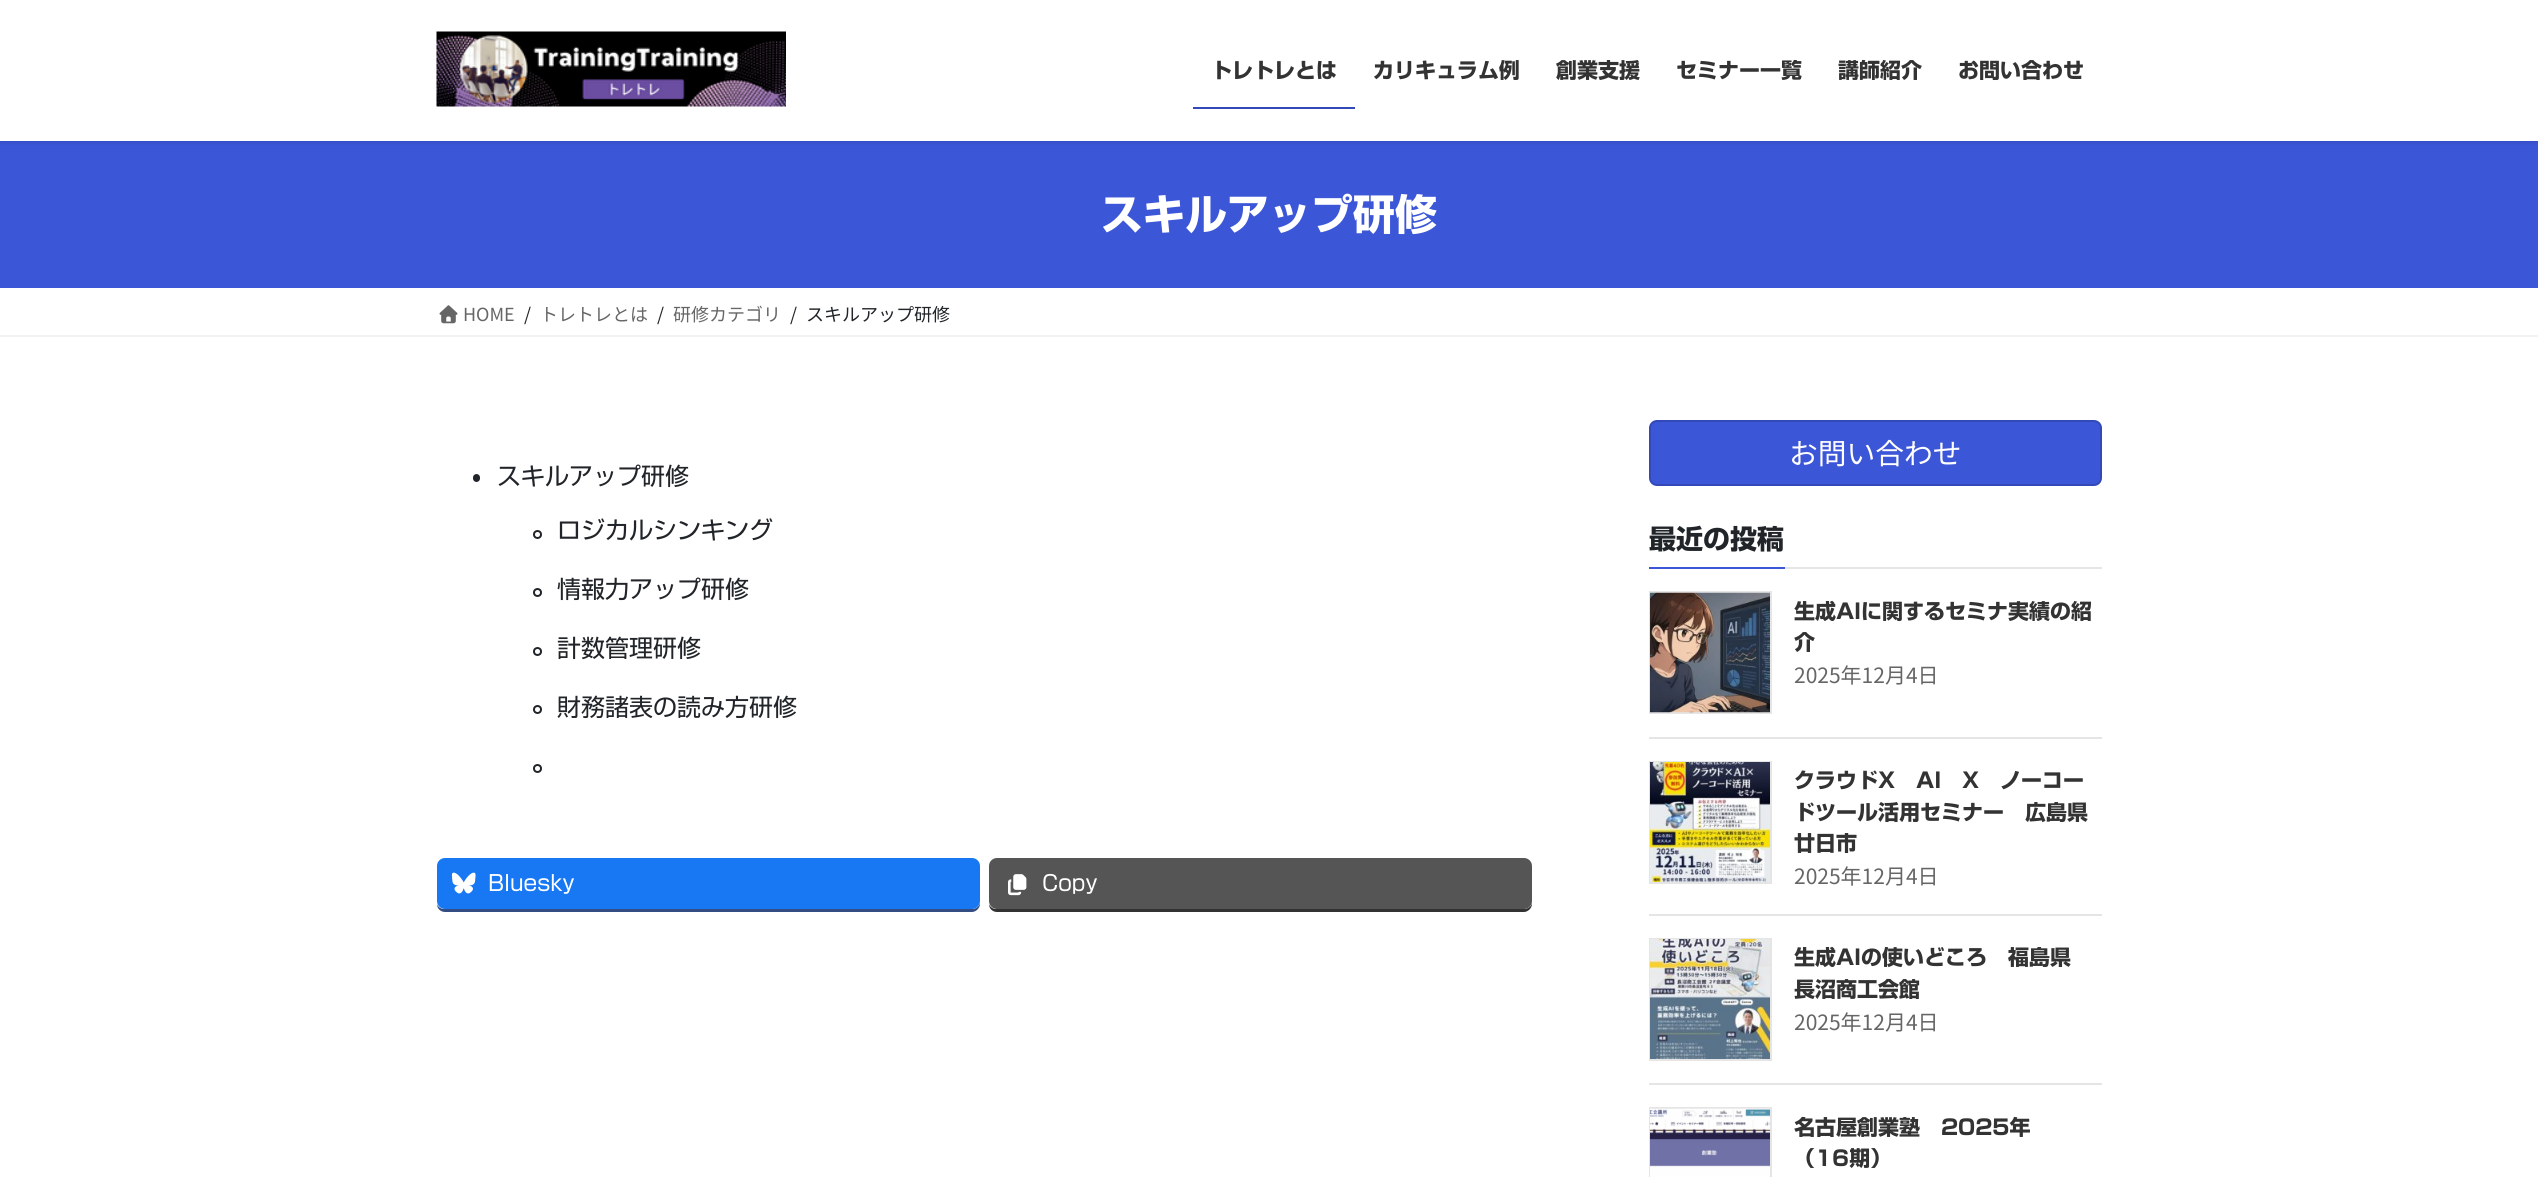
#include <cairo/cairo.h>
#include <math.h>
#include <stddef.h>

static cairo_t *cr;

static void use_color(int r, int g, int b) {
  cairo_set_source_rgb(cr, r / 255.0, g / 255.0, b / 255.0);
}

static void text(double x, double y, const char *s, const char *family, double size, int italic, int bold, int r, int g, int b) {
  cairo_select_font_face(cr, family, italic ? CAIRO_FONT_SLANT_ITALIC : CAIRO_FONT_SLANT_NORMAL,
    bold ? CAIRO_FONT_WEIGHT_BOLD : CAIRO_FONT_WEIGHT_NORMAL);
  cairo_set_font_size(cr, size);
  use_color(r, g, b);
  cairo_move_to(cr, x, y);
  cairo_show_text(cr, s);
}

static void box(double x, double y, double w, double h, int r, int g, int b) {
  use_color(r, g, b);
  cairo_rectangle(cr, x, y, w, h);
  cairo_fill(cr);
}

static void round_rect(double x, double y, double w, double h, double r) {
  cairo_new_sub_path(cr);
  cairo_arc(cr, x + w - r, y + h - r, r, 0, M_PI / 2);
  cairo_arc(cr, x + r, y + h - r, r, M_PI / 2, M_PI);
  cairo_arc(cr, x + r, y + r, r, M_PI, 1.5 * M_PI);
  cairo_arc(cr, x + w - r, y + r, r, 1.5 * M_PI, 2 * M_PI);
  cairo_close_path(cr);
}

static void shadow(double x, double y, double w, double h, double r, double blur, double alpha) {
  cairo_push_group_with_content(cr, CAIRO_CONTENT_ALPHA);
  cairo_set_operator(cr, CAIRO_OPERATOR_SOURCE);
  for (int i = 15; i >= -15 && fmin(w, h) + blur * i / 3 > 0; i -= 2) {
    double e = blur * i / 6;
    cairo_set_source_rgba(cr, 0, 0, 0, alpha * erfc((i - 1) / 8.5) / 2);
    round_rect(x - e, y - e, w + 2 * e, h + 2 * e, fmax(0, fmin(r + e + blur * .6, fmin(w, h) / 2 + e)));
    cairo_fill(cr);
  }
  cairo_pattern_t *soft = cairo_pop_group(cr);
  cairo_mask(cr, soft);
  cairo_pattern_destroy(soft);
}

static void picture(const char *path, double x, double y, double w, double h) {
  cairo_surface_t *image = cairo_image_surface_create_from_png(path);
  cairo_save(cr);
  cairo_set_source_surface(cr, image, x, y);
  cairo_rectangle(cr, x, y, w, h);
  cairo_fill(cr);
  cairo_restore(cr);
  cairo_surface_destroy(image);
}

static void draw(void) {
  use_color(255, 255, 255);
  cairo_paint(cr);
  box(0, 141, 2538, 147, 60, 86, 216);
  cairo_save(cr);
  cairo_rectangle(cr, 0, 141, 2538, 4);
  cairo_clip(cr);
  use_color(0, 0, 0);
  shadow(0, 2, 2538, 141, 0, 2, 0.1);
  cairo_restore(cr);
  picture("img_01.png", 436, 31, 350, 76);
  box(1193, 107, 162, 2, 51, 73, 184);
  box(0, 335, 2538, 2, 242, 242, 242);
  picture("img_02.png", 439, 305, 19, 19);
  use_color(33, 37, 41);
  round_rect(473, 474, 7, 8, 3.5);
  cairo_fill(cr);
  cairo_arc(cr, 537.5, 534.5, 3.5, 0, 2 * M_PI);
  cairo_stroke(cr);
  cairo_arc(cr, 537.5, 592.5, 3.5, 0, 2 * M_PI);
  cairo_stroke(cr);
  cairo_arc(cr, 537.5, 651.5, 3.5, 0, 2 * M_PI);
  cairo_stroke(cr);
  cairo_arc(cr, 537.5, 709.5, 3.5, 0, 2 * M_PI);
  cairo_stroke(cr);
  cairo_arc(cr, 537.5, 768.5, 3.5, 0, 2 * M_PI);
  cairo_stroke(cr);
  use_color(52, 78, 132);
  cairo_new_path(cr);
  cairo_move_to(cr, 437, 904);
  cairo_curve_to(cr, 437, 909, 441, 912, 445, 912);
  cairo_line_to(cr, 972, 912);
  cairo_curve_to(cr, 976, 912, 980, 908, 980, 904);
  cairo_line_to(cr, 980, 869);
  cairo_line_to(cr, 980, 866);
  cairo_line_to(cr, 980, 902);
  cairo_curve_to(cr, 980, 906, 976, 909, 972, 909);
  cairo_line_to(cr, 444, 909);
  cairo_curve_to(cr, 441, 909, 438, 907, 437, 904);
  cairo_close_path(cr);
  cairo_fill(cr);
  use_color(24, 119, 242);
  round_rect(437, 858, 543, 51, 8);
  cairo_fill(cr);
  picture("img_03.png", 451, 872, 25, 22);
  use_color(51, 51, 51);
  cairo_new_path(cr);
  cairo_move_to(cr, 989, 904);
  cairo_curve_to(cr, 989, 909, 993, 912, 997, 912);
  cairo_line_to(cr, 1524, 912);
  cairo_curve_to(cr, 1528, 912, 1532, 908, 1532, 904);
  cairo_line_to(cr, 1532, 869);
  cairo_line_to(cr, 1532, 866);
  cairo_line_to(cr, 1532, 902);
  cairo_curve_to(cr, 1532, 906, 1528, 909, 1524, 909);
  cairo_line_to(cr, 996, 909);
  cairo_curve_to(cr, 993, 909, 990, 907, 989, 904);
  cairo_close_path(cr);
  cairo_fill(cr);
  use_color(85, 85, 85);
  round_rect(989, 858, 543, 51, 8);
  cairo_fill(cr);
  picture("img_04.png", 1008, 874, 19, 22);
  use_color(60, 86, 216);
  round_rect(1650, 421, 451, 64, 7);
  cairo_fill_preserve(cr);
  use_color(51, 73, 184);
  cairo_stroke(cr);
  box(1785, 567, 317, 2, 230, 230, 230);
  box(1649, 567, 136, 2, 60, 86, 216);
  box(1649, 737, 453, 2, 229, 229, 229);
  cairo_rectangle(cr, 1650, 592, 121, 121);
  cairo_stroke(cr);
  picture("img_05.png", 1650, 592, 120, 121);
  box(1649, 914, 453, 2, 229, 229, 229);
  cairo_rectangle(cr, 1650, 762, 121, 121);
  cairo_stroke(cr);
  picture("img_06.png", 1650, 762, 120, 120);
  box(1649, 1083, 453, 2, 229, 229, 229);
  cairo_rectangle(cr, 1650, 939, 121, 121);
  cairo_stroke(cr);
  picture("img_07.png", 1650, 939, 120, 120);
  cairo_rectangle(cr, 1650, 1108, 121, 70);
  cairo_stroke(cr);
  picture("img_08.png", 1650, 1108, 120, 69);
  text(1211, 78, "トレトレとは", "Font", 21, 0, 1, 51, 51, 51);
  text(1373, 78, "カリキュラム例", "Font", 21, 0, 1, 51, 51, 51);
  text(1556, 78, "創業支援", "Font", 21, 0, 1, 51, 51, 51);
  text(1676, 78, "セミナー一覧", "Font", 21, 0, 1, 51, 51, 51);
  text(1838, 78, "講師紹介", "Font", 21, 0, 1, 51, 51, 51);
  text(1958, 78, "お問い合わせ", "Font", 21, 0, 1, 51, 51, 51);
  text(1101, 230, "スキルアップ研修", "Font", 42, 0, 1, 255, 255, 255);
  text(463, 321, "HOME", "Noto Sans JP", 18, 0, 0, 102, 102, 102);
  text(524, 321, "/", "Noto Sans JP", 18, 0, 0, 33, 37, 41);
  text(540, 321, "トレトレとは", "Noto Sans JP", 18, 0, 0, 102, 102, 102);
  text(657, 321, "/", "Noto Sans JP", 18, 0, 0, 33, 37, 41);
  text(673, 321, "研修カテゴリ", "Noto Sans JP", 18, 0, 0, 102, 102, 102);
  text(790, 321, "/", "Noto Sans JP", 18, 0, 0, 33, 37, 41);
  text(806, 321, "スキルアップ研修", "Noto Sans JP", 18, 0, 0, 33, 37, 41);
  text(497, 485, "スキルアップ研修", "Font", 24, 0, 0, 33, 37, 41);
  text(557, 539, "ロジカルシンキング", "Font", 24, 0, 0, 33, 37, 41);
  text(557, 598, "情報力アップ研修", "Font", 24, 0, 0, 33, 37, 41);
  text(557, 657, "計数管理研修", "Font", 24, 0, 0, 33, 37, 41);
  text(557, 716, "財務諸表の読み方研修", "Font", 24, 0, 0, 33, 37, 41);
  text(488, 891, "Bluesky", "Font", 21.5, 0, 0, 255, 255, 255);
  text(1042, 891, "Copy", "Font", 21.5, 0, 0, 255, 255, 255);
  text(1789, 464, "お問い合わせ", "Noto Sans JP", 28.75, 0, 0, 255, 255, 255);
  text(1649, 549, "最近の投稿", "Font", 27, 0, 1, 33, 37, 41);
  text(1794, 619, "生成AIに関するセミナ実績の紹", "Font", 21, 0, 1, 51, 51, 51);
  text(1794, 650, "介", "Font", 21, 0, 1, 51, 51, 51);
  text(1794, 683, "2025年12月4日", "Noto Sans JP", 21, 0, 0, 102, 102, 102);
  text(1794, 788, "クラウドX　AI　X　ノーコー", "Font", 21, 0, 1, 51, 51, 51);
  text(1794, 820, "ドツール活用セミナー　広島県", "Font", 21, 0, 1, 51, 51, 51);
  text(1794, 851, "廿日市", "Font", 21, 0, 1, 51, 51, 51);
  text(1794, 884, "2025年12月4日", "Noto Sans JP", 21, 0, 0, 102, 102, 102);
  text(1794, 965, "生成AIの使いどころ　福島県", "Font", 21, 0, 1, 51, 51, 51);
  text(1794, 997, "長沼商工会館", "Font", 21, 0, 1, 51, 51, 51);
  text(1794, 1030, "2025年12月4日", "Noto Sans JP", 21, 0, 0, 102, 102, 102);
  text(1794, 1135, "名古屋創業塾　2025年", "Font", 21, 0, 1, 51, 51, 51);
  text(1794, 1166, "（16期）", "Font", 21, 0, 1, 51, 51, 51);
}

int main(void) {
  cairo_surface_t *surface = cairo_image_surface_create(CAIRO_FORMAT_RGB24, 2538, 1177);
  cr = cairo_create(surface);
  cairo_font_options_t *options = cairo_font_options_create();
  cairo_font_options_set_hint_metrics(options, CAIRO_HINT_METRICS_OFF);
  cairo_font_options_set_hint_style(options, CAIRO_HINT_STYLE_NONE);
  cairo_set_font_options(cr, options);
  cairo_set_miter_limit(cr, 4);
  draw();
  cairo_surface_write_to_png(surface, "out.png");
  cairo_font_options_destroy(options);
  cairo_destroy(cr);
  cairo_surface_destroy(surface);
  return 0;
}
